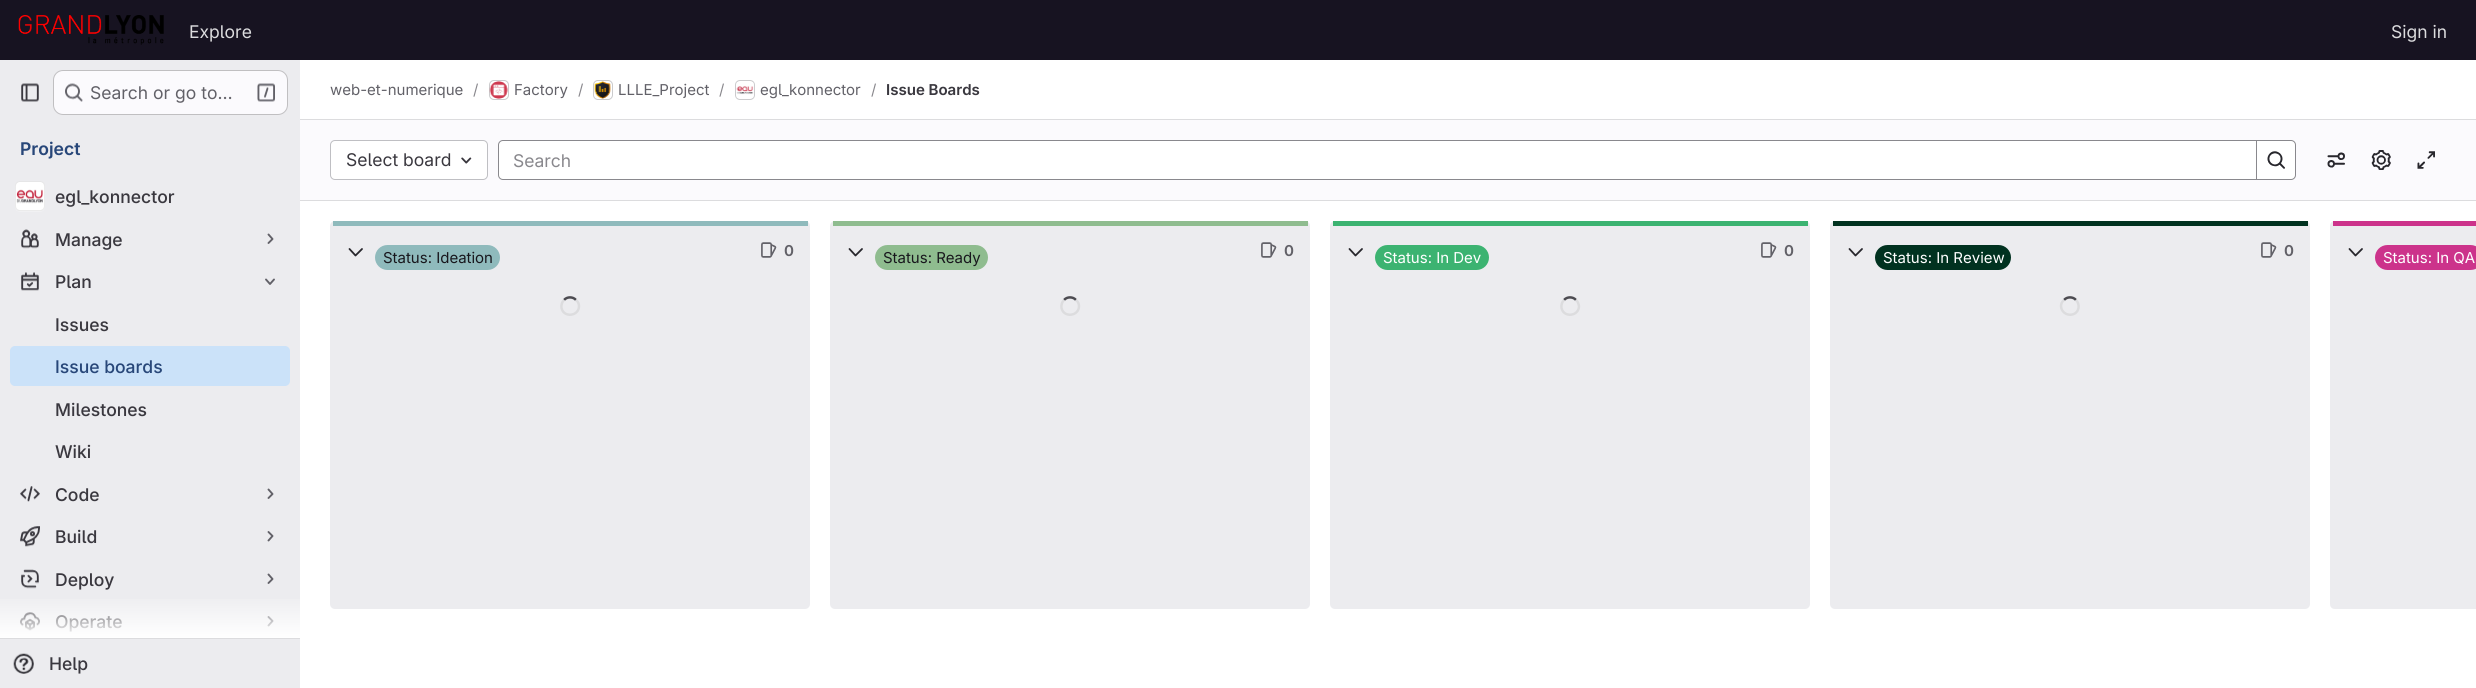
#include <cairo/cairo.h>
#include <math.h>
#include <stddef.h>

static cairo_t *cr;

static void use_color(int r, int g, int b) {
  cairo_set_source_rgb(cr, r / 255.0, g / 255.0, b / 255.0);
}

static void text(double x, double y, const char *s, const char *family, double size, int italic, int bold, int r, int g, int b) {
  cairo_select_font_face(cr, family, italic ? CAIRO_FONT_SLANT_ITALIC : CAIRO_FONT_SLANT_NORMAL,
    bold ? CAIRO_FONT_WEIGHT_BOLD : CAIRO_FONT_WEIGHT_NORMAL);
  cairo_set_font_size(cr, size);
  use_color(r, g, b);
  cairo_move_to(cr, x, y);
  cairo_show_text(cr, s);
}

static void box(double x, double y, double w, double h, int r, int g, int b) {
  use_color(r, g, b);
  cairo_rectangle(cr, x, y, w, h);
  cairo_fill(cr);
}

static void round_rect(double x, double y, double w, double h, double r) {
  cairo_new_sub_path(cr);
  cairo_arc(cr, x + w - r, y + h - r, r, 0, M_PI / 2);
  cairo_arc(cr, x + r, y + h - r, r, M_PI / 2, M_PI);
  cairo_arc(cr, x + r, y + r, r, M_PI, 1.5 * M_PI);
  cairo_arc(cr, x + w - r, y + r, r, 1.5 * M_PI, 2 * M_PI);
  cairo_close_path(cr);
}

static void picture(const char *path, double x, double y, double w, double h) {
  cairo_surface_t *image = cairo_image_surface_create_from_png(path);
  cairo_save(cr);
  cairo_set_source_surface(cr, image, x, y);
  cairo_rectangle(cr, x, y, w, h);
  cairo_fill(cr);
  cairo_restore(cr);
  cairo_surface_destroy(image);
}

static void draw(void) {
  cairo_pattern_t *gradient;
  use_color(255, 255, 255);
  cairo_paint(cr);
  box(0, 0, 2476, 60, 23, 19, 33);
  picture("img_01.png", 18, 15, 146, 30);
  box(0, 60, 300, 628, 236, 236, 239);
  picture("img_02.png", 21, 83, 18, 19);
  use_color(251, 250, 253);
  round_rect(53, 70, 235, 45, 10);
  cairo_fill(cr);
  round_rect(53.5, 70.5, 234, 44, 9.5);
  cairo_set_source_rgba(cr, 0.02, 0.02, 0.024, 0.24);
  cairo_set_line_width(cr, 1);
  cairo_stroke(cr);
  picture("img_03.png", 65, 83, 18, 19);
  picture("img_04.png", 257, 83, 18, 19);
  box(0, 638, 300, 1, 220, 220, 222);
  picture("img_05.png", 15, 181, 30, 31);
  round_rect(15.5, 181.5, 29, 29, 4.5);
  cairo_set_source_rgba(cr, 0.02, 0.02, 0.024, 0.08);
  cairo_stroke(cr);
  picture("img_06.png", 21, 229, 18, 20);
  cairo_new_path(cr);
  cairo_move_to(cr, 268.5, 234.5);
  cairo_line_to(cr, 272.5, 239);
  cairo_line_to(cr, 268.5, 243);
  use_color(98, 97, 104);
  cairo_set_line_width(cr, 1.9);
  cairo_set_line_cap(cr, CAIRO_LINE_CAP_ROUND);
  cairo_set_line_join(cr, CAIRO_LINE_JOIN_ROUND);
  cairo_stroke(cr);
  picture("img_07.png", 21, 272, 18, 19);
  cairo_new_path(cr);
  cairo_move_to(cr, 274, 279.5);
  cairo_line_to(cr, 270, 284);
  cairo_line_to(cr, 266, 279.5);
  cairo_stroke(cr);
  use_color(203, 226, 249);
  round_rect(10, 346, 280, 40, 5);
  cairo_fill(cr);
  picture("img_08.png", 20, 486, 20, 16);
  cairo_new_path(cr);
  cairo_move_to(cr, 268.5, 489.5);
  cairo_line_to(cr, 272.5, 494);
  cairo_line_to(cr, 268.5, 498);
  use_color(98, 97, 104);
  cairo_stroke(cr);
  picture("img_09.png", 20, 526, 20, 21);
  cairo_new_path(cr);
  cairo_move_to(cr, 268.5, 532);
  cairo_line_to(cr, 272.5, 536);
  cairo_line_to(cr, 268.5, 540.5);
  cairo_stroke(cr);
  picture("img_10.png", 21, 569, 18, 20);
  cairo_new_path(cr);
  cairo_move_to(cr, 268.5, 574.5);
  cairo_line_to(cr, 272.5, 579);
  cairo_line_to(cr, 268.5, 583);
  cairo_stroke(cr);
  picture("img_11.png", 20, 612, 20, 19);
  cairo_new_path(cr);
  cairo_move_to(cr, 268.5, 617);
  cairo_line_to(cr, 272.5, 621);
  cairo_line_to(cr, 268.5, 625.5);
  cairo_stroke(cr);
  picture("img_12.png", 13, 653, 21, 21);
  box(300, 119, 2176, 1, 220, 220, 222);
  round_rect(489.5, 80.5, 19, 19, 4.5);
  cairo_set_line_width(cr, 1);
  cairo_set_line_cap(cr, CAIRO_LINE_CAP_BUTT);
  cairo_set_line_join(cr, CAIRO_LINE_JOIN_MITER);
  cairo_stroke(cr);
  picture("img_13.png", 489, 81, 19, 18);
  round_rect(489.5, 80.5, 19, 19, 4.5);
  cairo_set_source_rgba(cr, 0.02, 0.02, 0.024, 0.08);
  cairo_stroke(cr);
  round_rect(593.5, 80.5, 19, 19, 4.5);
  use_color(220, 220, 222);
  cairo_stroke(cr);
  picture("img_14.png", 594, 81, 17, 18);
  round_rect(593.5, 80.5, 19, 19, 4.5);
  cairo_set_source_rgba(cr, 0.02, 0.02, 0.024, 0.08);
  cairo_stroke(cr);
  round_rect(735.5, 80.5, 19, 19, 4.5);
  use_color(220, 220, 222);
  cairo_stroke(cr);
  picture("img_15.png", 736, 82, 18, 16);
  round_rect(735.5, 80.5, 19, 19, 4.5);
  cairo_set_source_rgba(cr, 0.02, 0.02, 0.024, 0.08);
  cairo_stroke(cr);
  box(300, 120, 2176, 80, 251, 250, 253);
  box(300, 200, 2176, 1, 220, 220, 222);
  use_color(255, 255, 255);
  round_rect(330.5, 140.5, 157, 39, 4.5);
  cairo_fill_preserve(cr);
  use_color(191, 191, 195);
  cairo_stroke(cr);
  picture("img_16.png", 461, 157, 11, 7);
  use_color(255, 255, 255);
  cairo_new_path(cr);
  cairo_move_to(cr, 503, 140.5);
  cairo_line_to(cr, 2257.5, 140.5);
  cairo_line_to(cr, 2257.5, 179.5);
  cairo_line_to(cr, 503, 179.5);
  cairo_curve_to(cr, 500.5, 179.5, 498.5, 177.5, 498.5, 175);
  cairo_line_to(cr, 498.5, 145);
  cairo_curve_to(cr, 498.5, 142.5, 500.5, 140.5, 503, 140.5);
  cairo_close_path(cr);
  cairo_fill_preserve(cr);
  use_color(137, 136, 141);
  cairo_stroke(cr);
  use_color(255, 255, 255);
  cairo_new_path(cr);
  cairo_move_to(cr, 2256.5, 140.5);
  cairo_line_to(cr, 2291, 140.5);
  cairo_curve_to(cr, 2293.5, 140.5, 2295.5, 142.5, 2295.5, 145);
  cairo_line_to(cr, 2295.5, 175);
  cairo_curve_to(cr, 2295.5, 177.5, 2293.5, 179.5, 2291, 179.5);
  cairo_line_to(cr, 2256.5, 179.5);
  cairo_close_path(cr);
  cairo_fill_preserve(cr);
  use_color(137, 136, 141);
  cairo_stroke(cr);
  picture("img_17.png", 2267, 151, 18, 18);
  picture("img_18.png", 2327, 152, 18, 16);
  picture("img_19.png", 2371, 150, 20, 20);
  picture("img_20.png", 2417, 151, 18, 18);
  use_color(236, 236, 239);
  round_rect(330, 221, 480, 388, 5);
  cairo_fill(cr);
  box(333, 221, 475, 5, 143, 186, 188);
  cairo_new_path(cr);
  cairo_move_to(cr, 349.5, 249);
  cairo_line_to(cr, 355.5, 255.5);
  cairo_line_to(cr, 362, 249);
  use_color(40, 39, 45);
  cairo_set_line_width(cr, 1.8);
  cairo_set_line_cap(cr, CAIRO_LINE_CAP_ROUND);
  cairo_set_line_join(cr, CAIRO_LINE_JOIN_ROUND);
  cairo_stroke(cr);
  use_color(143, 186, 188);
  round_rect(376.5, 246.5, 122, 22, 11);
  cairo_fill_preserve(cr);
  cairo_set_line_width(cr, 3);
  cairo_set_line_cap(cr, CAIRO_LINE_CAP_BUTT);
  cairo_set_line_join(cr, CAIRO_LINE_JOIN_MITER);
  cairo_stroke(cr);
  picture("img_21.png", 761, 242, 16, 16);
  cairo_new_path(cr);
  cairo_move_to(cr, 564, 300);
  cairo_curve_to(cr, 567, 296.5, 573, 296.5, 576, 300);
  use_color(76, 75, 81);
  cairo_set_line_width(cr, 2.5);
  cairo_stroke(cr);
  cairo_new_path(cr);
  cairo_move_to(cr, 576, 300);
  cairo_curve_to(cr, 578, 301.5, 579, 304, 579, 306);
  cairo_curve_to(cr, 579, 316.5, 563.5, 318, 561.5, 308);
  cairo_curve_to(cr, 561, 305, 562, 302, 564, 300);
  use_color(220, 220, 222);
  cairo_stroke(cr);
  use_color(236, 236, 239);
  round_rect(830, 221, 480, 388, 5);
  cairo_fill(cr);
  box(833, 221, 475, 5, 143, 188, 143);
  cairo_new_path(cr);
  cairo_move_to(cr, 849.5, 249);
  cairo_line_to(cr, 855.5, 255.5);
  cairo_line_to(cr, 862, 249);
  use_color(40, 39, 45);
  cairo_set_line_width(cr, 1.8);
  cairo_set_line_cap(cr, CAIRO_LINE_CAP_ROUND);
  cairo_set_line_join(cr, CAIRO_LINE_JOIN_ROUND);
  cairo_stroke(cr);
  use_color(143, 188, 143);
  round_rect(876.5, 246.5, 110, 22, 11);
  cairo_fill_preserve(cr);
  cairo_set_line_width(cr, 3);
  cairo_set_line_cap(cr, CAIRO_LINE_CAP_BUTT);
  cairo_set_line_join(cr, CAIRO_LINE_JOIN_MITER);
  cairo_stroke(cr);
  picture("img_22.png", 1261, 242, 16, 16);
  cairo_new_path(cr);
  cairo_move_to(cr, 1064, 300);
  cairo_curve_to(cr, 1067, 296.5, 1073, 296.5, 1076, 300);
  use_color(76, 75, 81);
  cairo_set_line_width(cr, 2.5);
  cairo_stroke(cr);
  cairo_new_path(cr);
  cairo_move_to(cr, 1076, 300);
  cairo_curve_to(cr, 1078, 301.5, 1079, 304, 1079, 306);
  cairo_curve_to(cr, 1079, 316.5, 1063.5, 318, 1061.5, 308);
  cairo_curve_to(cr, 1061, 305, 1062, 302, 1064, 300);
  use_color(220, 220, 222);
  cairo_stroke(cr);
  use_color(236, 236, 239);
  round_rect(1330, 221, 480, 388, 5);
  cairo_fill(cr);
  box(1333, 221, 475, 5, 60, 179, 113);
  cairo_new_path(cr);
  cairo_move_to(cr, 1349.5, 249);
  cairo_line_to(cr, 1355.5, 255.5);
  cairo_line_to(cr, 1362, 249);
  use_color(40, 39, 45);
  cairo_set_line_width(cr, 1.8);
  cairo_set_line_cap(cr, CAIRO_LINE_CAP_ROUND);
  cairo_set_line_join(cr, CAIRO_LINE_JOIN_ROUND);
  cairo_stroke(cr);
  use_color(60, 179, 113);
  round_rect(1376.5, 246.5, 111, 22, 11);
  cairo_fill_preserve(cr);
  cairo_set_line_width(cr, 3);
  cairo_set_line_cap(cr, CAIRO_LINE_CAP_BUTT);
  cairo_set_line_join(cr, CAIRO_LINE_JOIN_MITER);
  cairo_stroke(cr);
  picture("img_23.png", 1761, 242, 16, 16);
  cairo_new_path(cr);
  cairo_move_to(cr, 1564, 300);
  cairo_curve_to(cr, 1567, 296.5, 1573, 296.5, 1576, 300);
  use_color(76, 75, 81);
  cairo_set_line_width(cr, 2.5);
  cairo_stroke(cr);
  cairo_new_path(cr);
  cairo_move_to(cr, 1576, 300);
  cairo_curve_to(cr, 1578, 301.5, 1578.5, 304, 1579, 306);
  cairo_curve_to(cr, 1579, 316.5, 1563.5, 318, 1561.5, 308);
  cairo_curve_to(cr, 1561, 305, 1562, 302, 1564, 300);
  use_color(220, 220, 222);
  cairo_stroke(cr);
  use_color(236, 236, 239);
  round_rect(1830, 221, 480, 388, 5);
  cairo_fill(cr);
  box(1833, 221, 475, 5, 1, 50, 32);
  cairo_new_path(cr);
  cairo_move_to(cr, 1849.5, 249);
  cairo_line_to(cr, 1855.5, 255.5);
  cairo_line_to(cr, 1862, 249);
  use_color(40, 39, 45);
  cairo_set_line_width(cr, 1.8);
  cairo_set_line_cap(cr, CAIRO_LINE_CAP_ROUND);
  cairo_set_line_join(cr, CAIRO_LINE_JOIN_ROUND);
  cairo_stroke(cr);
  use_color(1, 50, 32);
  round_rect(1876.5, 246.5, 133, 22, 11);
  cairo_fill_preserve(cr);
  cairo_set_line_width(cr, 3);
  cairo_set_line_cap(cr, CAIRO_LINE_CAP_BUTT);
  cairo_set_line_join(cr, CAIRO_LINE_JOIN_MITER);
  cairo_stroke(cr);
  picture("img_23.png", 2261, 242, 16, 16);
  cairo_new_path(cr);
  cairo_move_to(cr, 2064, 300);
  cairo_curve_to(cr, 2067, 296.5, 2073, 296.5, 2076, 300);
  use_color(76, 75, 81);
  cairo_set_line_width(cr, 2.5);
  cairo_stroke(cr);
  cairo_new_path(cr);
  cairo_move_to(cr, 2076, 300);
  cairo_curve_to(cr, 2078, 302, 2079, 305, 2078.5, 308);
  cairo_curve_to(cr, 2076.5, 318, 2061.5, 316.5, 2061, 306);
  cairo_curve_to(cr, 2061, 304, 2062, 301.5, 2064, 300);
  use_color(220, 220, 222);
  cairo_stroke(cr);
  use_color(236, 236, 239);
  cairo_new_path(cr);
  cairo_move_to(cr, 2335, 221);
  cairo_line_to(cr, 2476, 221);
  cairo_line_to(cr, 2476, 609);
  cairo_line_to(cr, 2335, 609);
  cairo_curve_to(cr, 2332, 609, 2330, 607, 2330, 604);
  cairo_line_to(cr, 2330, 226);
  cairo_curve_to(cr, 2330, 223, 2332, 221, 2335, 221);
  cairo_close_path(cr);
  cairo_fill(cr);
  box(2333, 221, 143, 5, 204, 51, 139);
  cairo_new_path(cr);
  cairo_move_to(cr, 2349.5, 249);
  cairo_line_to(cr, 2355.5, 255.5);
  cairo_line_to(cr, 2362, 249);
  use_color(40, 39, 45);
  cairo_set_line_width(cr, 1.8);
  cairo_set_line_cap(cr, CAIRO_LINE_CAP_ROUND);
  cairo_set_line_join(cr, CAIRO_LINE_JOIN_ROUND);
  cairo_stroke(cr);
  use_color(204, 51, 139);
  round_rect(2376.5, 246.5, 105, 22, 11);
  cairo_fill_preserve(cr);
  cairo_set_line_width(cr, 3);
  cairo_set_line_cap(cr, CAIRO_LINE_CAP_BUTT);
  cairo_set_line_join(cr, CAIRO_LINE_JOIN_MITER);
  cairo_stroke(cr);
  text(189, 38, "Explore", "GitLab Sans", 17.5, 0, 0, 220, 220, 222);
  text(2391, 38, "Sign in", "GitLab Sans", 17.5, 0, 0, 220, 220, 222);
  text(90, 99, "Search or go to…", "GitLab Sans", 17.5, 0, 0, 98, 97, 104);
  text(20, 155, "Project", "GitLab Sans SemiBold", 17.5, 0, 0, 40, 71, 121);
  text(55, 203, "egl_konnector", "GitLab Sans Medium", 17.5, 0, 0, 58, 56, 63);
  text(55, 246, "Manage", "GitLab Sans Medium", 17.5, 0, 0, 58, 56, 63);
  text(55, 288, "Plan", "GitLab Sans Medium", 17.5, 0, 0, 58, 56, 63);
  text(55, 331, "Issues", "GitLab Sans Medium", 17.5, 0, 0, 58, 56, 63);
  text(55, 373, "Issue boards", "GitLab Sans Medium", 17.5, 0, 0, 40, 71, 121);
  text(55, 416, "Milestones", "GitLab Sans Medium", 17.5, 0, 0, 58, 56, 63);
  text(55, 458, "Wiki", "GitLab Sans Medium", 17.5, 0, 0, 58, 56, 63);
  text(55, 501, "Code", "GitLab Sans Medium", 17.5, 0, 0, 58, 56, 63);
  text(55, 543, "Build", "GitLab Sans Medium", 17.5, 0, 0, 58, 56, 63);
  text(55, 586, "Deploy", "GitLab Sans Medium", 17.5, 0, 0, 58, 56, 63);
  text(55, 628, "Operate", "GitLab Sans Medium", 17.5, 0, 0, 58, 56, 63);
  gradient = cairo_pattern_create_linear(150, 593, 150, 638);
  cairo_pattern_add_color_stop_rgba(gradient, 0, 1, 1, 1, 0);
  cairo_pattern_add_color_stop_rgba(gradient, 1, 1, 1, 1, 1);
  cairo_set_source(cr, gradient);
  cairo_pattern_destroy(gradient);
  cairo_rectangle(cr, 0, 599, 300, 39);
  cairo_fill(cr);
  text(49, 670, "Help", "GitLab Sans Medium", 17.5, 0, 0, 58, 56, 63);
  text(330, 95, "web-et-numerique", "GitLab Sans", 15, 0, 0, 98, 97, 104);
  text(473, 95, "/", "GitLab Sans", 15, 0, 0, 137, 136, 141);
  text(514, 95, "Factory", "GitLab Sans", 15, 0, 0, 98, 97, 104);
  text(578, 95, "/", "GitLab Sans", 15, 0, 0, 137, 136, 141);
  text(618, 95, "LLLE_Project", "GitLab Sans", 15, 0, 0, 98, 97, 104);
  text(719, 95, "/", "GitLab Sans", 15, 0, 0, 137, 136, 141);
  text(760, 95, "egl_konnector", "GitLab Sans", 15, 0, 0, 98, 97, 104);
  text(871, 95, "/", "GitLab Sans", 15, 0, 0, 137, 136, 141);
  text(886, 95, "Issue Boards", "GitLab Sans SemiBold", 15, 0, 0, 58, 56, 63);
  text(346, 166, "Select board", "GitLab Sans", 17.5, 0, 0, 58, 56, 63);
  text(513, 167, "Search", "GitLab Sans", 17.5, 0, 0, 137, 136, 141);
  text(383, 263, "Status: Ideation", "GitLab Sans", 15, 0, 0, 24, 23, 29);
  text(784, 256, "0", "GitLab Sans SemiBold", 15, 0, 0, 98, 97, 104);
  text(883, 263, "Status: Ready", "GitLab Sans", 15, 0, 0, 24, 23, 29);
  text(1284, 256, "0", "GitLab Sans SemiBold", 15, 0, 0, 98, 97, 104);
  text(1383, 263, "Status: In Dev", "GitLab Sans", 15, 0, 0, 255, 255, 255);
  text(1784, 256, "0", "GitLab Sans SemiBold", 15, 0, 0, 98, 97, 104);
  text(1883, 263, "Status: In Review", "GitLab Sans", 15, 0, 0, 255, 255, 255);
  text(2284, 256, "0", "GitLab Sans SemiBold", 15, 0, 0, 98, 97, 104);
  text(2383, 263, "Status: In QA", "GitLab Sans", 15, 0, 0, 255, 255, 255);
}

int main(void) {
  cairo_surface_t *surface = cairo_image_surface_create(CAIRO_FORMAT_RGB24, 2476, 688);
  cr = cairo_create(surface);
  cairo_font_options_t *options = cairo_font_options_create();
  cairo_font_options_set_hint_metrics(options, CAIRO_HINT_METRICS_OFF);
  cairo_font_options_set_hint_style(options, CAIRO_HINT_STYLE_NONE);
  cairo_set_font_options(cr, options);
  cairo_set_miter_limit(cr, 4);
  draw();
  cairo_surface_write_to_png(surface, "out.png");
  cairo_font_options_destroy(options);
  cairo_destroy(cr);
  cairo_surface_destroy(surface);
  return 0;
}
